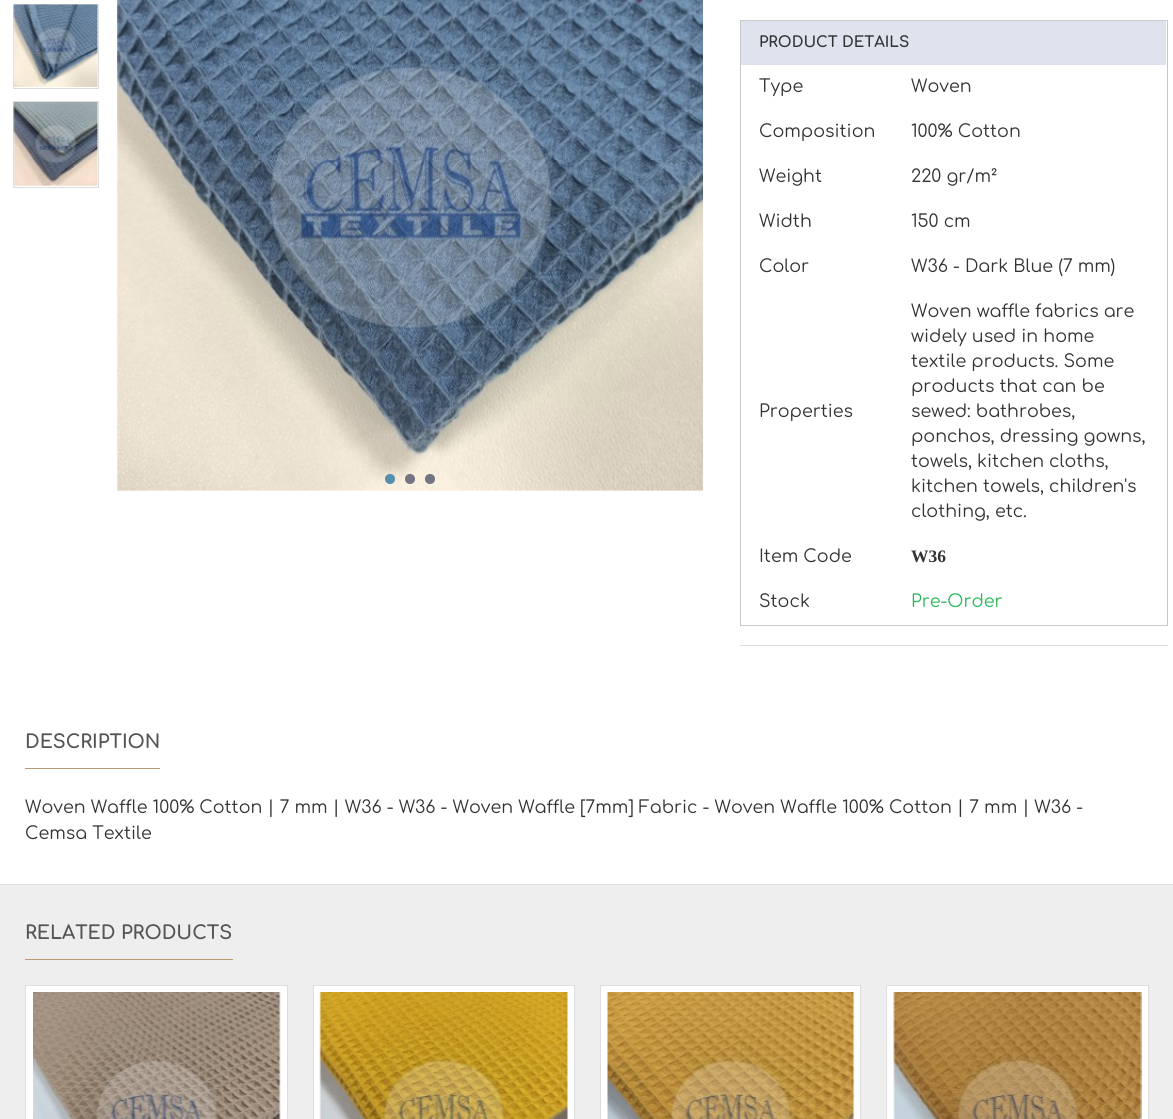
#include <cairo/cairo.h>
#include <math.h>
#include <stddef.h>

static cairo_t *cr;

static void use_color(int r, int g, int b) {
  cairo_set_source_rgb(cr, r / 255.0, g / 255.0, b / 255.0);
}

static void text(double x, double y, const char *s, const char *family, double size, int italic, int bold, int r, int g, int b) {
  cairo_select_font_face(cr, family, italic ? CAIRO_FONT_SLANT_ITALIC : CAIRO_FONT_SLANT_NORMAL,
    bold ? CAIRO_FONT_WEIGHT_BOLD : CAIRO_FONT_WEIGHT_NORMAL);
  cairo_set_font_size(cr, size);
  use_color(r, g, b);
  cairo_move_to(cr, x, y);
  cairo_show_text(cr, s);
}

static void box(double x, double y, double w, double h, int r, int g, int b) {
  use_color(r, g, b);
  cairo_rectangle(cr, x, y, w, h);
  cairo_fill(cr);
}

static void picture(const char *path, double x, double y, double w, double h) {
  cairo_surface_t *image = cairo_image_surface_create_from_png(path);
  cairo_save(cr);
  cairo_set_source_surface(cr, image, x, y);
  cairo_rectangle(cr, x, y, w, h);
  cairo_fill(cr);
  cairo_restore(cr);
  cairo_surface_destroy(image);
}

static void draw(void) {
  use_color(255, 255, 255);
  cairo_paint(cr);
  cairo_rectangle(cr, 13.5, 4.5, 85, 84);
  use_color(221, 221, 221);
  cairo_set_line_width(cr, 1);
  cairo_stroke(cr);
  picture("img_01.png", 13, 4, 85, 83);
  cairo_rectangle(cr, 13.5, 101.5, 85, 86);
  cairo_stroke(cr);
  picture("img_02.png", 13, 102, 85, 84);
  picture("img_03.png", 117, 0, 586, 491);
  use_color(86, 142, 175);
  cairo_arc(cr, 390, 479, 5, 0, 2 * M_PI);
  cairo_fill(cr);
  use_color(115, 115, 129);
  cairo_arc(cr, 410, 479, 5, 0, 2 * M_PI);
  cairo_fill(cr);
  cairo_arc(cr, 430, 479, 5, 0, 2 * M_PI);
  cairo_fill(cr);
  cairo_rectangle(cr, 740.5, 20.5, 427, 605);
  use_color(200, 200, 200);
  cairo_stroke(cr);
  box(741, 21, 425, 44, 223, 227, 238);
  box(740, 645, 428, 1, 221, 221, 221);
  box(0, 884, 1173, 1, 221, 221, 221);
  box(25, 768, 135, 1, 181, 155, 110);
  box(0, 885, 1173, 234, 238, 238, 238);
  box(25, 959, 208, 1, 181, 155, 110);
  use_color(255, 255, 255);
  cairo_rectangle(cr, 25.5, 985.5, 262, 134);
  cairo_fill_preserve(cr);
  use_color(221, 221, 221);
  cairo_stroke(cr);
  picture("img_04.png", 33, 992, 248, 127);
  use_color(255, 255, 255);
  cairo_rectangle(cr, 313.5, 985.5, 261, 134);
  cairo_fill_preserve(cr);
  use_color(221, 221, 221);
  cairo_stroke(cr);
  picture("img_05.png", 319, 992, 249, 127);
  use_color(255, 255, 255);
  cairo_rectangle(cr, 600.5, 985.5, 260, 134);
  cairo_fill_preserve(cr);
  use_color(221, 221, 221);
  cairo_stroke(cr);
  picture("img_06.png", 607, 992, 248, 127);
  use_color(255, 255, 255);
  cairo_rectangle(cr, 886.5, 985.5, 262, 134);
  cairo_fill_preserve(cr);
  use_color(221, 221, 221);
  cairo_stroke(cr);
  picture("img_07.png", 893, 992, 249, 127);
  text(759, 47, "PRODUCT DETAILS", "Comfortaa", 15, 0, 1, 51, 51, 51);
  text(759, 92, "Type", "Comfortaa", 17.5, 0, 0, 51, 51, 51);
  text(911, 92, "Woven", "Comfortaa", 17.5, 0, 0, 51, 51, 51);
  text(759, 137, "Composition", "Comfortaa", 17.5, 0, 0, 51, 51, 51);
  text(911, 137, "100% Cotton", "Comfortaa", 17.5, 0, 0, 51, 51, 51);
  text(759, 182, "Weight", "Comfortaa", 17.5, 0, 0, 51, 51, 51);
  text(911, 182, "220 gr/m²", "Comfortaa", 17.5, 0, 0, 51, 51, 51);
  text(759, 227, "Width", "Comfortaa", 17.5, 0, 0, 51, 51, 51);
  text(911, 227, "150 cm", "Comfortaa", 17.5, 0, 0, 51, 51, 51);
  text(759, 272, "Color", "Comfortaa", 17.5, 0, 0, 51, 51, 51);
  text(911, 272, "W36 - Dark Blue (7 mm)", "Comfortaa", 17.5, 0, 0, 51, 51, 51);
  text(759, 417, "Properties", "Comfortaa", 17.5, 0, 0, 51, 51, 51);
  text(911, 317, "Woven waffle fabrics are", "Comfortaa", 17.5, 0, 0, 51, 51, 51);
  text(911, 342, "widely used in home", "Comfortaa", 17.5, 0, 0, 51, 51, 51);
  text(911, 367, "textile products. Some", "Comfortaa", 17.5, 0, 0, 51, 51, 51);
  text(911, 392, "products that can be", "Comfortaa", 17.5, 0, 0, 51, 51, 51);
  text(911, 417, "sewed: bathrobes,", "Comfortaa", 17.5, 0, 0, 51, 51, 51);
  text(911, 442, "ponchos, dressing gowns,", "Comfortaa", 17.5, 0, 0, 51, 51, 51);
  text(911, 467, "towels, kitchen cloths,", "Comfortaa", 17.5, 0, 0, 51, 51, 51);
  text(911, 492, "kitchen towels, children's", "Comfortaa", 17.5, 0, 0, 51, 51, 51);
  text(911, 517, "clothing, etc.", "Comfortaa", 17.5, 0, 0, 51, 51, 51);
  text(759, 562, "Item Code", "Comfortaa", 17.5, 0, 0, 51, 51, 51);
  text(911, 562, "W36", "Liberation Serif", 17.5, 0, 1, 51, 51, 51);
  text(759, 607, "Stock", "Comfortaa", 17.5, 0, 0, 51, 51, 51);
  text(911, 607, "Pre-Order", "Comfortaa", 17.5, 0, 0, 42, 184, 88);
  text(25, 748, "DESCRIPTION", "Comfortaa", 18.75, 0, 1, 85, 85, 85);
  text(25, 813, "Woven Waffle 100% Cotton | 7 mm | W36 - W36 - Woven Waffle [7mm] Fabric - Woven Waffle 100% Cotton | 7 mm | W36 -", "Comfortaa", 17.5, 0, 0, 51, 51, 51);
  text(25, 839, "Cemsa Textile", "Comfortaa", 17.5, 0, 0, 51, 51, 51);
  text(25, 939, "RELATED PRODUCTS", "Comfortaa", 18.75, 0, 1, 85, 85, 85);
}

int main(void) {
  cairo_surface_t *surface = cairo_image_surface_create(CAIRO_FORMAT_RGB24, 1173, 1119);
  cr = cairo_create(surface);
  cairo_font_options_t *options = cairo_font_options_create();
  cairo_font_options_set_hint_metrics(options, CAIRO_HINT_METRICS_OFF);
  cairo_font_options_set_hint_style(options, CAIRO_HINT_STYLE_NONE);
  cairo_set_font_options(cr, options);
  cairo_set_miter_limit(cr, 4);
  draw();
  cairo_surface_write_to_png(surface, "out.png");
  cairo_font_options_destroy(options);
  cairo_destroy(cr);
  cairo_surface_destroy(surface);
  return 0;
}
